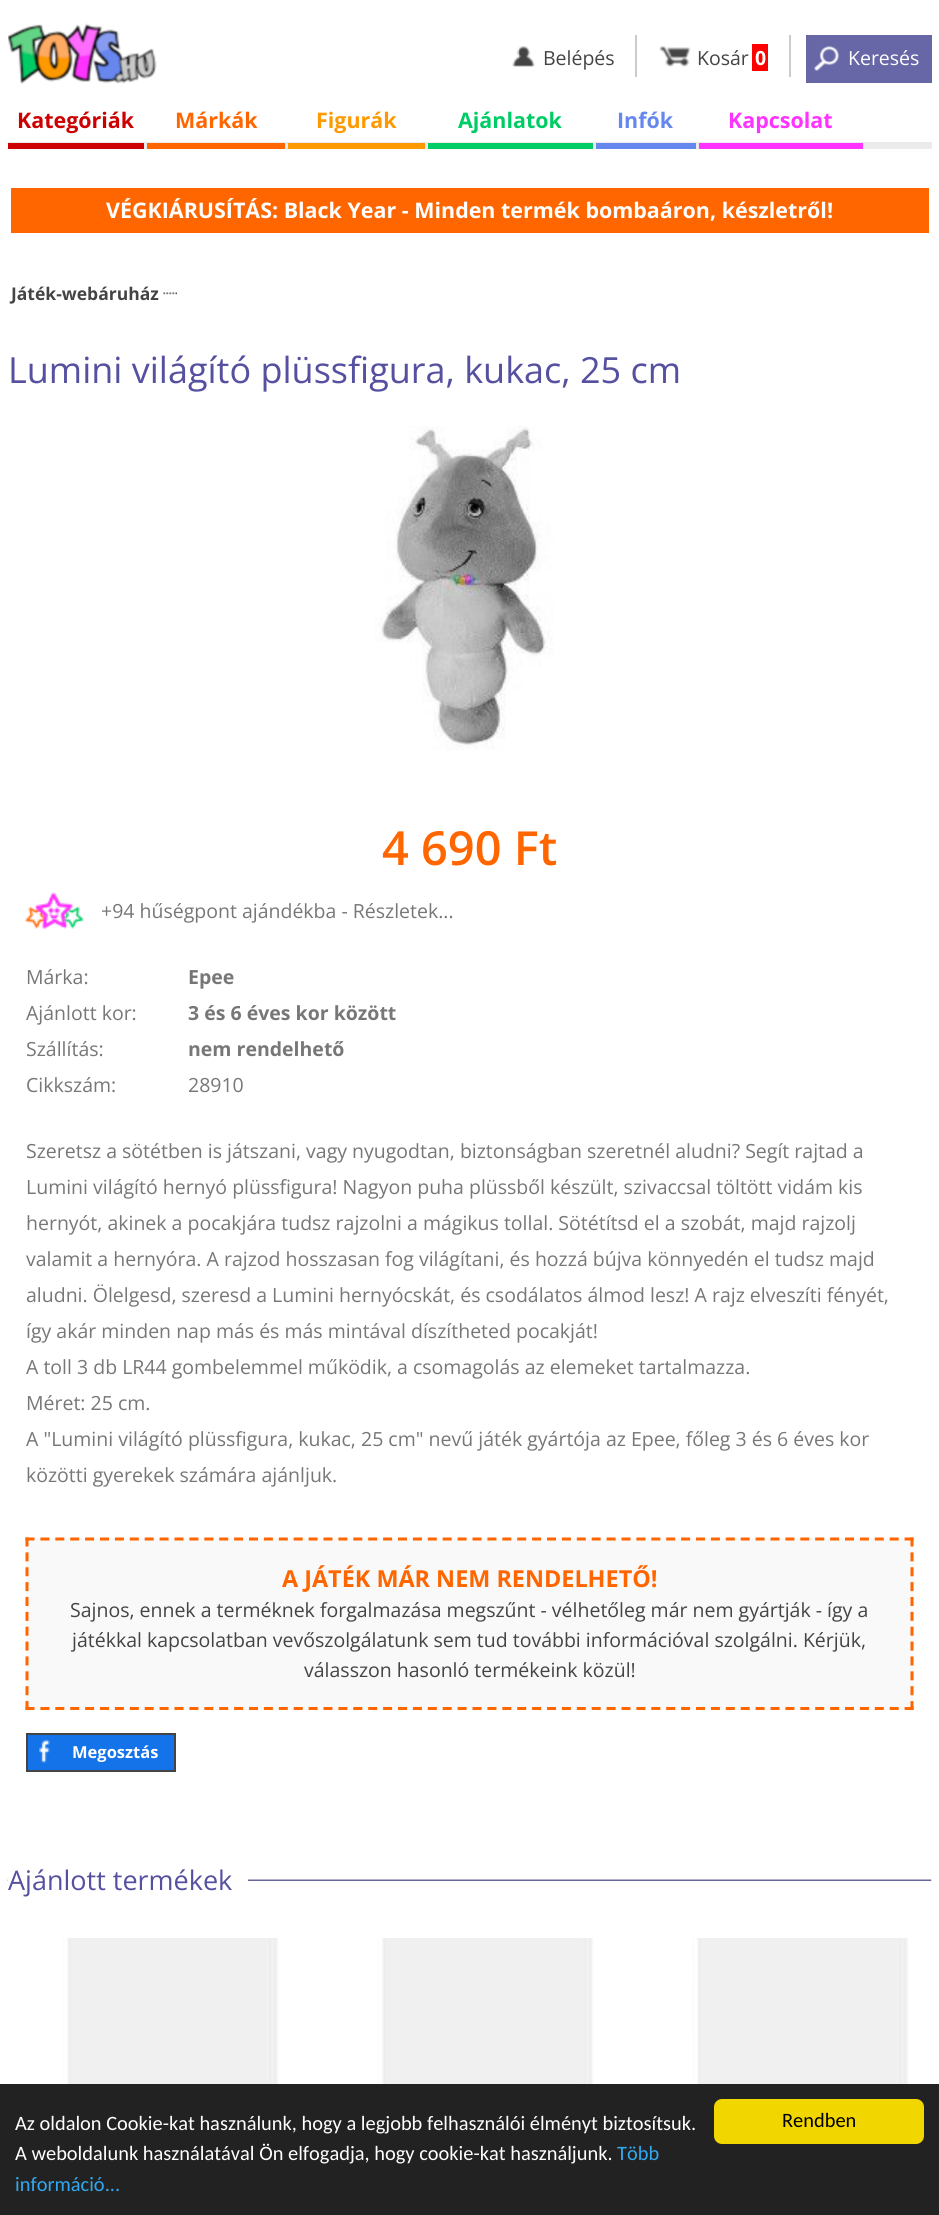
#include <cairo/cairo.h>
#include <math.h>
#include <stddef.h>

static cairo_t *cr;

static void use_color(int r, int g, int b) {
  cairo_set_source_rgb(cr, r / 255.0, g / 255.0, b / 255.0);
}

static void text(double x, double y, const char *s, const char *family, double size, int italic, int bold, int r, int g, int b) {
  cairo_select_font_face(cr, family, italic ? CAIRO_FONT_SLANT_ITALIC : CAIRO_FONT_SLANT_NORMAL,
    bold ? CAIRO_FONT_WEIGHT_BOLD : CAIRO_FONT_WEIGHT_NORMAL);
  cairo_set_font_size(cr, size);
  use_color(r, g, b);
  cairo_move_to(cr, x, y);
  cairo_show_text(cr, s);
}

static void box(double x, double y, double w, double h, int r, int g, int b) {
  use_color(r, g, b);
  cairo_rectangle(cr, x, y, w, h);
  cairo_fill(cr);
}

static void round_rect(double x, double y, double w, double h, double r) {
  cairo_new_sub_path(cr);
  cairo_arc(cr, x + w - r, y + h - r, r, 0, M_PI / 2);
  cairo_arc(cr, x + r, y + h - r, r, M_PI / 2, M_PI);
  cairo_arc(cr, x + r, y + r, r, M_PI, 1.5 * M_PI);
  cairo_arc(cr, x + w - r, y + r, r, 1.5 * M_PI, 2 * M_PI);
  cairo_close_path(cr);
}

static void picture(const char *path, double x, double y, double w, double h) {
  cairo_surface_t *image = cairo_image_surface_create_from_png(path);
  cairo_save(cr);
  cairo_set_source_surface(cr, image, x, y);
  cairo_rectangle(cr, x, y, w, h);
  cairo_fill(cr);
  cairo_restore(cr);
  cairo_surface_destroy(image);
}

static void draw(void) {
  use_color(255, 255, 255);
  cairo_paint(cr);
  picture("img_01.png", 8, 23, 149, 61);
  picture("img_02.png", 512, 46, 23, 21);
  box(635, 35, 2, 42, 204, 204, 204);
  picture("img_03.png", 659, 46, 32, 21);
  box(789, 35, 2, 42, 204, 204, 204);
  box(752, 44, 16, 27, 255, 0, 0);
  box(806, 35, 126, 48, 103, 102, 167);
  picture("img_04.png", 814, 46, 25, 25);
  box(8, 142, 924, 7, 235, 235, 235);
  box(8, 143, 136, 6, 204, 0, 0);
  box(147, 143, 138, 6, 255, 102, 0);
  box(288, 143, 137, 6, 255, 153, 0);
  box(428, 143, 165, 6, 0, 204, 102);
  box(596, 143, 100, 6, 102, 136, 238);
  box(699, 143, 164, 6, 255, 51, 255);
  box(11, 188, 918, 45, 255, 102, 0);
  picture("img_05.png", 163, 292, 14, 3);
  picture("img_06.png", 375, 426, 179, 324);
  picture("img_07.png", 25, 892, 59, 37);
  box(26, 1538, 888, 172, 249, 249, 249);
  cairo_new_path(cr);
  cairo_move_to(cr, 25.5, 1539);
  cairo_line_to(cr, 913.5, 1539);
  use_color(255, 102, 0);
  cairo_set_line_width(cr, 3);
  cairo_set_dash(cr, (double[]){9, 5.9}, 2, 0);
  cairo_stroke(cr);
  cairo_new_path(cr);
  cairo_move_to(cr, 912, 1537.5);
  cairo_line_to(cr, 912, 1710);
  cairo_set_dash(cr, (double[]){9, 5.87}, 2, 0);
  cairo_stroke(cr);
  cairo_new_path(cr);
  cairo_move_to(cr, 25.5, 1708.5);
  cairo_line_to(cr, 913.5, 1708.5);
  cairo_set_dash(cr, (double[]){9, 5.9}, 2, 0);
  cairo_stroke(cr);
  cairo_new_path(cr);
  cairo_move_to(cr, 27, 1537.5);
  cairo_line_to(cr, 27, 1710);
  cairo_set_dash(cr, (double[]){9, 5.87}, 2, 0);
  cairo_stroke(cr);
  box(28, 1735, 146, 35, 21, 115, 234);
  picture("img_08.png", 39, 1740, 11, 23);
  cairo_rectangle(cr, 27, 1734, 148, 37);
  use_color(68, 68, 68);
  cairo_set_line_width(cr, 2);
  cairo_set_dash(cr, NULL, 0, 0);
  cairo_stroke(cr);
  picture("img_09.png", 7, 1879, 925, 2);
  box(8, 1879, 240, 2, 255, 255, 255);
  picture("img_10.png", 43, 1938, 866, 146);
  box(0, 2084, 939, 131, 34, 34, 34);
  use_color(241, 214, 0);
  round_rect(714, 2099, 210, 45, 8);
  cairo_fill(cr);
  text(543, 65, "Belépés", "Open Sans", 19.5, 0, 0, 68, 68, 68);
  text(697, 65, "Kosár", "Open Sans", 19.5, 0, 0, 68, 68, 68);
  text(755, 65, "0", "Open Sans", 19.5, 0, 1, 255, 255, 255);
  text(848, 65, "Keresés", "Open Sans", 19.5, 0, 0, 255, 255, 255);
  text(17, 128, "Kategóriák", "Open Sans", 21.45, 0, 1, 204, 0, 0);
  text(175, 128, "Márkák", "Open Sans", 21.45, 0, 1, 255, 102, 0);
  text(316, 128, "Figurák", "Open Sans", 21.45, 0, 1, 255, 153, 0);
  text(458, 128, "Ajánlatok", "Open Sans", 21.45, 0, 1, 0, 204, 102);
  text(617, 128, "Infók", "Open Sans", 21.45, 0, 1, 102, 136, 238);
  text(728, 128, "Kapcsolat", "Open Sans", 21.45, 0, 1, 255, 51, 255);
  text(106, 218, "VÉGKIÁRUSÍTÁS: Black Year - Minden termék bombaáron, készletről!", "Open Sans", 21.45, 0, 1, 255, 255, 255);
  text(11, 300, "Játék-webáruház", "Open Sans", 17.5, 0, 1, 68, 68, 68);
  text(8, 383, "Lumini világító plüssfigura, kukac, 25 cm", "Open Sans", 36, 0, 0, 85, 80, 159);
  text(382, 865, "4 690 Ft", "Open Sans SemiBold", 47, 0, 0, 255, 102, 0);
  text(101, 918, "+94 hűségpont ajándékba - Részletek...", "Open Sans", 19.5, 0, 0, 119, 119, 119);
  text(26, 984, "Márka:", "Open Sans", 19.5, 0, 0, 119, 119, 119);
  text(188, 984, "Epee", "Open Sans", 19.5, 0, 1, 119, 119, 119);
  text(26, 1020, "Ajánlott kor:", "Open Sans", 19.5, 0, 0, 119, 119, 119);
  text(188, 1020, "3 és 6 éves kor között", "Open Sans", 19.5, 0, 1, 119, 119, 119);
  text(26, 1056, "Szállítás:", "Open Sans", 19.5, 0, 0, 119, 119, 119);
  text(188, 1056, "nem rendelhető", "Open Sans", 19.5, 0, 1, 119, 119, 119);
  text(26, 1092, "Cikkszám:", "Open Sans", 19.5, 0, 0, 119, 119, 119);
  text(188, 1092, "28910", "Open Sans", 19.5, 0, 0, 119, 119, 119);
  text(26, 1158, "Szeretsz a sötétben is játszani, vagy nyugodtan, biztonságban szeretnél aludni? Segít rajtad a", "Open Sans", 19.5, 0, 0, 119, 119, 119);
  text(26, 1194, "Lumini világító hernyó plüssfigura! Nagyon puha plüssből készült, szivaccsal töltött vidám kis", "Open Sans", 19.5, 0, 0, 119, 119, 119);
  text(26, 1230, "hernyót, akinek a pocakjára tudsz rajzolni a mágikus tollal. Sötétítsd el a szobát, majd rajzolj", "Open Sans", 19.5, 0, 0, 119, 119, 119);
  text(26, 1266, "valamit a hernyóra. A rajzod hosszasan fog világítani, és hozzá bújva könnyedén el tudsz majd", "Open Sans", 19.5, 0, 0, 119, 119, 119);
  text(26, 1302, "aludni. Ölelgesd, szeresd a Lumini hernyócskát, és csodálatos álmod lesz! A rajz elveszíti fényét,", "Open Sans", 19.5, 0, 0, 119, 119, 119);
  text(26, 1338, "így akár minden nap más és más mintával díszítheted pocakját!", "Open Sans", 19.5, 0, 0, 119, 119, 119);
  text(26, 1374, "A toll 3 db LR44 gombelemmel működik, a csomagolás az elemeket tartalmazza.", "Open Sans", 19.5, 0, 0, 119, 119, 119);
  text(26, 1410, "Méret: 25 cm.", "Open Sans", 19.5, 0, 0, 119, 119, 119);
  text(26, 1446, "A \"Lumini világító plüssfigura, kukac, 25 cm\" nevű játék gyártója az Epee, főleg 3 és 6 éves kor", "Open Sans", 19.5, 0, 0, 119, 119, 119);
  text(26, 1482, "közötti gyerekek számára ajánljuk.", "Open Sans", 19.5, 0, 0, 119, 119, 119);
  text(282, 1587, "A JÁTÉK MÁR NEM RENDELHETŐ!", "Open Sans", 23.4, 0, 1, 255, 102, 0);
  text(70, 1617, "Sajnos, ennek a terméknek forgalmazása megszűnt - vélhetőleg már nem gyártják - így a", "Open Sans", 19.5, 0, 0, 68, 68, 68);
  text(72, 1647, "játékkal kapcsolatban vevőszolgálatunk sem tud további információval szolgálni. Kérjük,", "Open Sans", 19.5, 0, 0, 68, 68, 68);
  text(304, 1677, "válasszon hasonló termékeink közül!", "Open Sans", 19.5, 0, 0, 68, 68, 68);
  text(72, 1758, "Megosztás", "Open Sans", 16.5, 0, 1, 255, 255, 255);
  text(8, 1890, "Ajánlott termékek", "Open Sans", 27, 0, 0, 85, 80, 159);
  text(15, 2130, "Az oldalon Cookie-kat használunk, hogy a legjobb felhasználói élményt biztosítsuk.", "Carlito", 20.4, 0, 0, 255, 255, 255);
  text(15, 2160, "A weboldalunk használatával Ön elfogadja, hogy cookie-kat használjunk.", "Carlito", 20.4, 0, 0, 255, 255, 255);
  text(617, 2160, "Több", "Carlito", 20.4, 0, 0, 49, 168, 240);
  text(15, 2191, "információ...", "Carlito", 20.4, 0, 0, 49, 168, 240);
  text(782, 2127, "Rendben", "Carlito", 20.4, 0, 0, 0, 0, 0);
}

int main(void) {
  cairo_surface_t *surface = cairo_image_surface_create(CAIRO_FORMAT_RGB24, 939, 2215);
  cr = cairo_create(surface);
  cairo_font_options_t *options = cairo_font_options_create();
  cairo_font_options_set_hint_metrics(options, CAIRO_HINT_METRICS_OFF);
  cairo_font_options_set_hint_style(options, CAIRO_HINT_STYLE_NONE);
  cairo_set_font_options(cr, options);
  cairo_set_miter_limit(cr, 4);
  draw();
  cairo_surface_write_to_png(surface, "out.png");
  cairo_font_options_destroy(options);
  cairo_destroy(cr);
  cairo_surface_destroy(surface);
  return 0;
}
